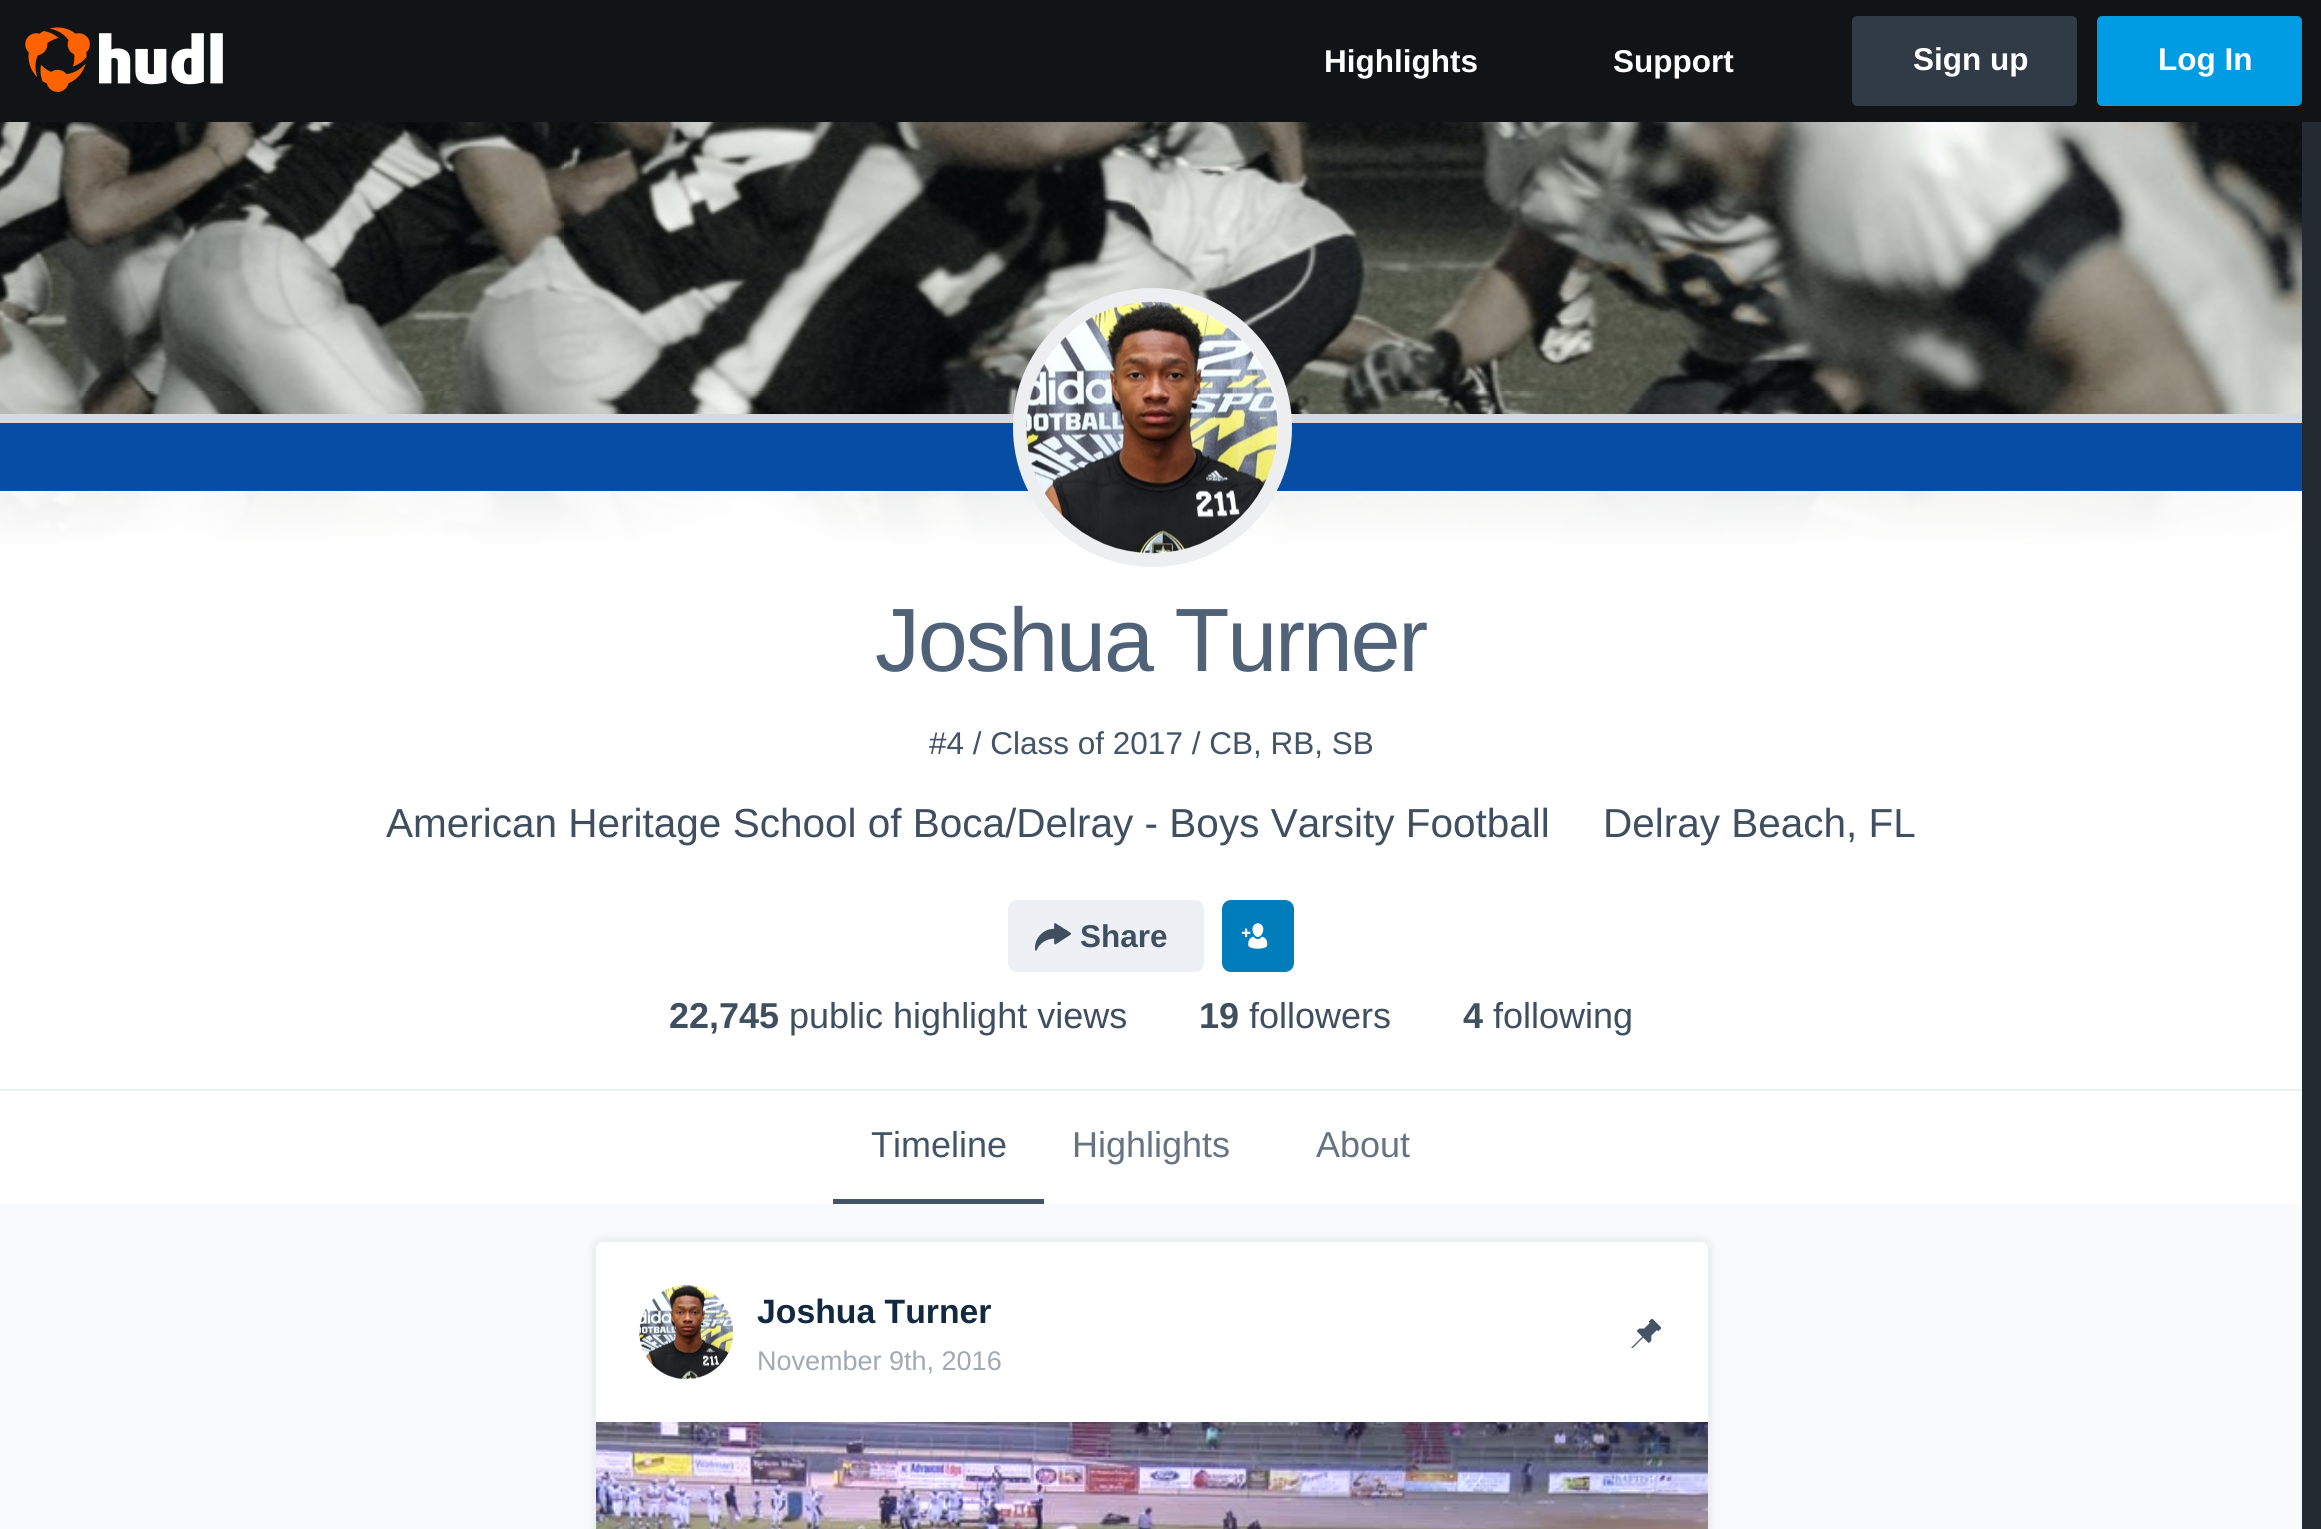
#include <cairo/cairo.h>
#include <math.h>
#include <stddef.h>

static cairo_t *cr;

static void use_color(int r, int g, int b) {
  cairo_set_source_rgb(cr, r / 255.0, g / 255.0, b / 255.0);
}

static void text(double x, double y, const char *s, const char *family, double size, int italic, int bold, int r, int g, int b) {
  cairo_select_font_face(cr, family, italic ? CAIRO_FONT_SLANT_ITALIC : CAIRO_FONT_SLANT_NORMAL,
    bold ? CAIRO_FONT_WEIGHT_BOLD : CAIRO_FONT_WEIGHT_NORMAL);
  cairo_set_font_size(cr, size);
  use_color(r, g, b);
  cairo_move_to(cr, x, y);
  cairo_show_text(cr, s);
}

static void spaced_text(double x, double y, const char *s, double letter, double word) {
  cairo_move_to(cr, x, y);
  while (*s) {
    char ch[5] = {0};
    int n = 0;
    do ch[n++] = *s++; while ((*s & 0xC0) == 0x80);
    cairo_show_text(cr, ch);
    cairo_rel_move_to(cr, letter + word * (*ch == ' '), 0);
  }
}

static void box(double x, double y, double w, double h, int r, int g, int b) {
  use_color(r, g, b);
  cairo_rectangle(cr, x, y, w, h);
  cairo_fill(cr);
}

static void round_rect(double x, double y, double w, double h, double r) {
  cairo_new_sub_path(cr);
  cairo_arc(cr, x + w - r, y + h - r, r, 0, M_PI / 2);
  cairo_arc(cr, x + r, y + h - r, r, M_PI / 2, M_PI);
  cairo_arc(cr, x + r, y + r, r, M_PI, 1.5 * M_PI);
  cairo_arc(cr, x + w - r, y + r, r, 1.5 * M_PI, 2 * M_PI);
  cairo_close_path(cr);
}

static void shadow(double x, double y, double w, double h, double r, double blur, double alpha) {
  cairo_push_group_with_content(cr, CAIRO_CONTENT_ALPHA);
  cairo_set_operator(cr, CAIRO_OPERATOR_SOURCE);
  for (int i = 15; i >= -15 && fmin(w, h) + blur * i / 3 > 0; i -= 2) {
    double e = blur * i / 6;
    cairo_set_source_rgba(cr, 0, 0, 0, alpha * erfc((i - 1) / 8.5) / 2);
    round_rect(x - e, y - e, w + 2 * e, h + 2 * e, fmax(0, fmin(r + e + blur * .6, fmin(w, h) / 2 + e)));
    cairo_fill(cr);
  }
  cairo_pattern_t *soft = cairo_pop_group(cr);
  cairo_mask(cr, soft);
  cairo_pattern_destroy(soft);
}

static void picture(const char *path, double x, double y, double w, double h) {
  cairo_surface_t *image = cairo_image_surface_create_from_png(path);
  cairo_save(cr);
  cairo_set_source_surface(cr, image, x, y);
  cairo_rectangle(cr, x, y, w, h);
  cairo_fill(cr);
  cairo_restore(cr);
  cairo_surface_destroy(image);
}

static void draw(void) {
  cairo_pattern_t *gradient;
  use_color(35, 42, 49);
  cairo_paint(cr);
  box(0, 0, 2321, 122, 16, 20, 23);
  picture("img_01.png", 25, 27, 198, 65);
  use_color(49, 59, 69);
  round_rect(1855.5, 19.5, 218, 83, 1.5);
  cairo_fill_preserve(cr);
  cairo_set_line_width(cr, 7);
  cairo_stroke(cr);
  use_color(0, 156, 227);
  round_rect(2100.5, 19.5, 198, 83, 1.5);
  cairo_fill_preserve(cr);
  cairo_stroke(cr);
  picture("img_02.png", 0, 122, 2302, 422);
  gradient = cairo_pattern_create_linear(1151, 414, 1151, 1089);
  cairo_pattern_add_color_stop_rgba(gradient, 0, 1, 1, 1, 0.85);
  cairo_pattern_add_color_stop_rgba(gradient, 0.2, 1, 1, 1, 1);
  cairo_set_source(cr, gradient);
  cairo_pattern_destroy(gradient);
  cairo_rectangle(cr, 0, 491, 2302, 598);
  cairo_fill(cr);
  box(0, 1089, 2302, 2, 237, 240, 242);
  box(0, 414, 2302, 9, 215, 217, 221);
  box(0, 423, 2302, 68, 8, 77, 164);
  use_color(255, 255, 255);
  cairo_arc(cr, 1152.5, 427.5, 139.5, 0, 2 * M_PI);
  cairo_fill(cr);
  cairo_arc(cr, 1152.5, 427.5, 132.5, 0, 2 * M_PI);
  cairo_set_source_rgba(cr, 0.271, 0.322, 0.369, 0.1);
  cairo_set_line_width(cr, 14);
  cairo_stroke(cr);
  picture("img_03.png", 1026, 301, 252, 253);
  use_color(237, 241, 245);
  round_rect(1008, 900, 196, 72, 9);
  cairo_fill(cr);
  picture("img_04.png", 1035, 923, 36, 28);
  use_color(2, 125, 187);
  round_rect(1222, 900, 72, 72, 9);
  cairo_fill(cr);
  picture("img_05.png", 1241, 923, 27, 26);
  box(0, 1091, 2302, 113, 255, 255, 255);
  box(833, 1199, 211, 5, 66, 84, 101);
  box(0, 1204, 2302, 325, 249, 250, 251);
  use_color(0, 0, 0);
  shadow(594, 1240, 1116, 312, 9, 4.5, 0.1);
  use_color(255, 255, 255);
  cairo_new_path(cr);
  cairo_move_to(cr, 603, 1240);
  cairo_line_to(cr, 1701, 1240);
  cairo_curve_to(cr, 1706, 1240, 1710, 1244, 1710, 1249);
  cairo_line_to(cr, 1710, 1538);
  cairo_line_to(cr, 594, 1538);
  cairo_line_to(cr, 594, 1249);
  cairo_curve_to(cr, 594, 1244, 598, 1240, 603, 1240);
  cairo_close_path(cr);
  cairo_fill(cr);
  round_rect(595, 1241, 1114, 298, 8);
  use_color(237, 240, 242);
  cairo_set_line_width(cr, 2);
  cairo_stroke(cr);
  picture("img_06.png", 639, 1284, 95, 96);
  picture("img_07.png", 1631, 1319, 30, 29);
  picture("img_08.png", 596, 1422, 1112, 107);
  text(1324, 72, "Highlights", "Liberation Sans", 31.5, 0, 1, 255, 255, 255);
  text(1613, 72, "Support", "Liberation Sans", 31.5, 0, 1, 255, 255, 255);
  text(1913, 70, "Sign up", "Liberation Sans", 31.5, 0, 1, 255, 255, 255);
  text(2158, 70, "Log In", "Liberation Sans", 31.5, 0, 1, 255, 255, 255);
  cairo_select_font_face(cr, "Liberation Sans", CAIRO_FONT_SLANT_NORMAL, CAIRO_FONT_WEIGHT_NORMAL);
  cairo_set_font_size(cr, 90);
  use_color(80, 98, 119);
  spaced_text(875, 671, "Joshua Turner", -2.25, 0);
  text(929, 754, "#4 / Class of 2017 / CB, RB, SB", "Liberation Sans", 31.5, 0, 0, 66, 84, 101);
  text(386, 837, "American Heritage School of Boca/Delray - Boys Varsity Football", "Liberation Sans", 40.5, 0, 0, 63, 79, 95);
  text(1603, 837, "Delray Beach, FL", "Liberation Sans", 40.5, 0, 0, 63, 79, 95);
  text(1080, 947, "Share", "Liberation Sans", 31.5, 0, 1, 63, 79, 95);
  text(669, 1028, "22,745", "Liberation Sans", 36, 0, 1, 63, 79, 95);
  text(789, 1028, "public highlight views", "Liberation Sans", 36, 0, 0, 63, 79, 95);
  text(1199, 1028, "19", "Liberation Sans", 36, 0, 1, 63, 79, 95);
  text(1249, 1028, "followers", "Liberation Sans", 36, 0, 0, 63, 79, 95);
  text(1463, 1028, "4", "Liberation Sans", 36, 0, 1, 63, 79, 95);
  text(1493, 1028, "following", "Liberation Sans", 36, 0, 0, 63, 79, 95);
  text(871, 1157, "Timeline", "Liberation Sans", 36, 0, 0, 66, 84, 101);
  text(1072, 1157, "Highlights", "Liberation Sans", 36, 0, 0, 102, 116, 130);
  text(1316, 1157, "About", "Liberation Sans", 36, 0, 0, 102, 116, 130);
  text(757, 1323, "Joshua Turner", "Liberation Sans", 33.75, 0, 1, 19, 41, 63);
  text(757, 1370, "November 9th, 2016", "Liberation Sans", 27, 0, 0, 161, 169, 178);
}

int main(void) {
  cairo_surface_t *surface = cairo_image_surface_create(CAIRO_FORMAT_RGB24, 2321, 1529);
  cr = cairo_create(surface);
  cairo_font_options_t *options = cairo_font_options_create();
  cairo_font_options_set_hint_metrics(options, CAIRO_HINT_METRICS_OFF);
  cairo_font_options_set_hint_style(options, CAIRO_HINT_STYLE_NONE);
  cairo_set_font_options(cr, options);
  cairo_set_miter_limit(cr, 4);
  draw();
  cairo_surface_write_to_png(surface, "out.png");
  cairo_font_options_destroy(options);
  cairo_destroy(cr);
  cairo_surface_destroy(surface);
  return 0;
}
